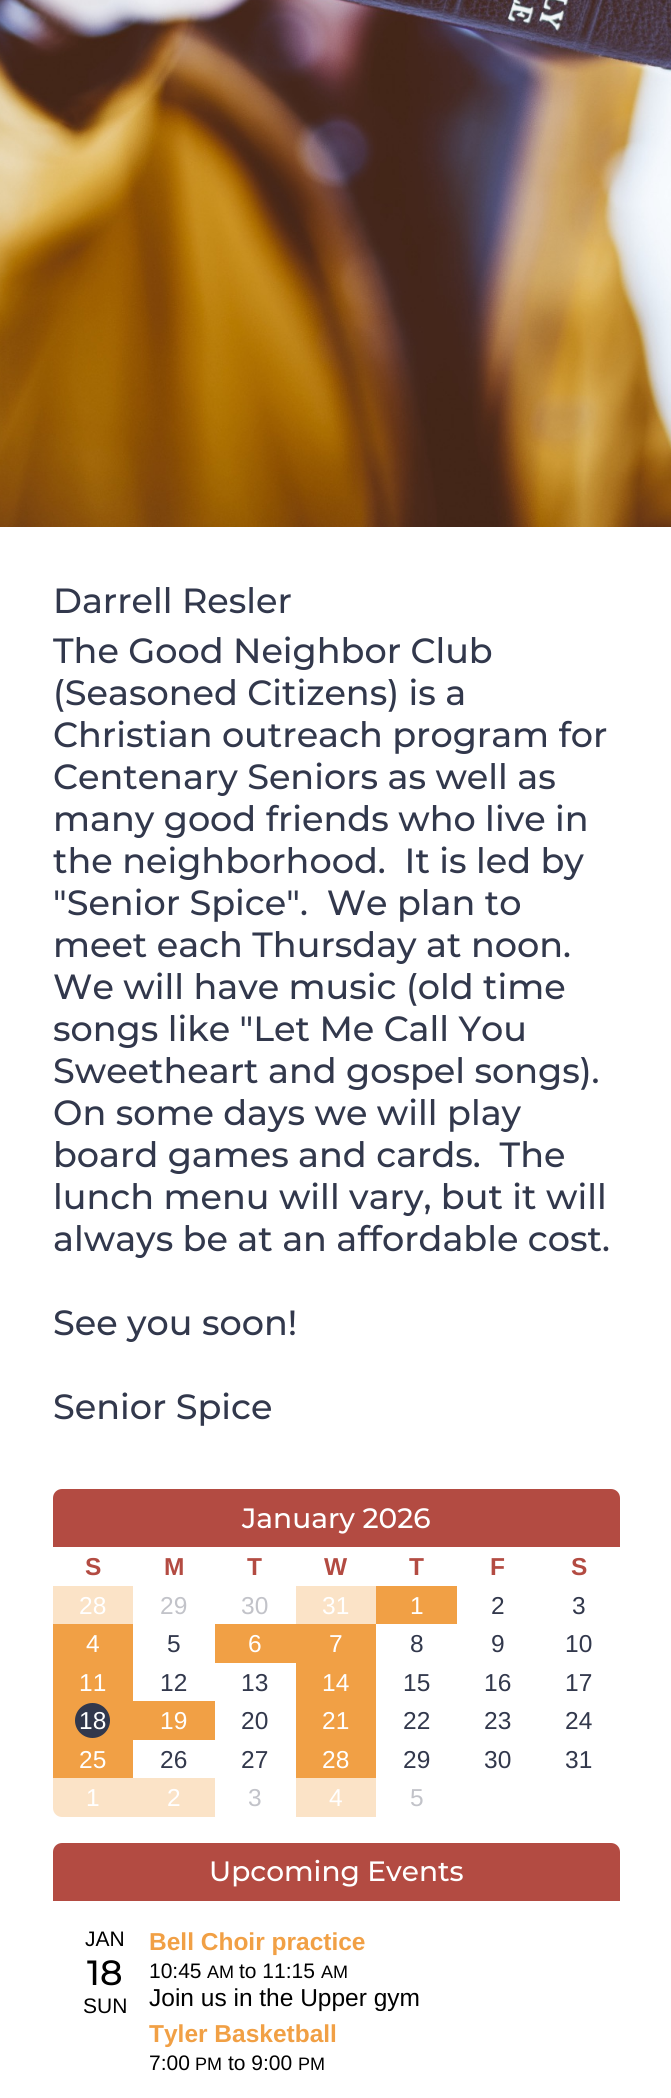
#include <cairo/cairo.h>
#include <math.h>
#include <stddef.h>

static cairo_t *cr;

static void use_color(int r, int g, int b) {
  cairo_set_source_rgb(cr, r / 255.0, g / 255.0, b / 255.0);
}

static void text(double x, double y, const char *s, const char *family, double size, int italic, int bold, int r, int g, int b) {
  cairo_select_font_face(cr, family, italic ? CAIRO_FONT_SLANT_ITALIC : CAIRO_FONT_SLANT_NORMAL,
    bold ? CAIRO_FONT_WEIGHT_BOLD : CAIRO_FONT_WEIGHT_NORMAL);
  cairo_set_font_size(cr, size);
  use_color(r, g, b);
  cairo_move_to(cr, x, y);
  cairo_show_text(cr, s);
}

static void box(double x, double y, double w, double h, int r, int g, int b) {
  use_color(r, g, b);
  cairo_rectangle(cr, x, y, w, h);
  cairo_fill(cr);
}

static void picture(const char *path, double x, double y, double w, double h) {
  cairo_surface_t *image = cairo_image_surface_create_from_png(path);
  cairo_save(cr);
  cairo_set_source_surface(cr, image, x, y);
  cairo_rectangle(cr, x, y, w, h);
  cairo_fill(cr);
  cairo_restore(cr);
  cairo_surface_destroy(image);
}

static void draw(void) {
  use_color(255, 255, 255);
  cairo_paint(cr);
  picture("img_01.png", 0, 0, 671, 527);
  use_color(179, 75, 66);
  cairo_new_path(cr);
  cairo_move_to(cr, 62, 1489);
  cairo_line_to(cr, 611, 1489);
  cairo_curve_to(cr, 616, 1489, 620, 1493, 620, 1498);
  cairo_line_to(cr, 620, 1547);
  cairo_line_to(cr, 53, 1547);
  cairo_line_to(cr, 53, 1498);
  cairo_curve_to(cr, 53, 1493, 57, 1489, 62, 1489);
  cairo_close_path(cr);
  cairo_fill(cr);
  box(53, 1586, 80, 38, 251, 227, 199);
  box(296, 1586, 80, 38, 251, 227, 199);
  box(376, 1586, 81, 38, 241, 160, 69);
  box(53, 1624, 80, 154, 241, 160, 69);
  box(215, 1624, 161, 39, 241, 160, 69);
  box(296, 1663, 80, 115, 241, 160, 69);
  use_color(50, 56, 76);
  cairo_arc(cr, 92.5, 1720.5, 17.5, 0, 2 * M_PI);
  cairo_fill(cr);
  box(133, 1701, 82, 39, 241, 160, 69);
  use_color(251, 227, 199);
  cairo_new_path(cr);
  cairo_move_to(cr, 53, 1778);
  cairo_line_to(cr, 133, 1778);
  cairo_line_to(cr, 133, 1817);
  cairo_line_to(cr, 62, 1817);
  cairo_curve_to(cr, 57, 1817, 53, 1813, 53, 1808);
  cairo_close_path(cr);
  cairo_fill(cr);
  box(133, 1778, 82, 39, 251, 227, 199);
  box(296, 1778, 80, 39, 251, 227, 199);
  use_color(179, 75, 66);
  cairo_new_path(cr);
  cairo_move_to(cr, 62, 1843);
  cairo_line_to(cr, 611, 1843);
  cairo_curve_to(cr, 616, 1843, 620, 1847, 620, 1852);
  cairo_line_to(cr, 620, 1901);
  cairo_line_to(cr, 53, 1901);
  cairo_line_to(cr, 53, 1852);
  cairo_curve_to(cr, 53, 1847, 57, 1843, 62, 1843);
  cairo_close_path(cr);
  cairo_fill(cr);
  text(53, 613, "Darrell Resler", "Montserrat Medium", 35, 0, 0, 50, 56, 76);
  text(53, 663, "The Good Neighbor Club", "Montserrat Medium", 35, 0, 0, 50, 56, 76);
  text(53, 705, "(Seasoned Citizens) is a", "Montserrat Medium", 35, 0, 0, 50, 56, 76);
  text(53, 747, "Christian outreach program for", "Montserrat Medium", 35, 0, 0, 50, 56, 76);
  text(53, 789, "Centenary Seniors as well as", "Montserrat Medium", 35, 0, 0, 50, 56, 76);
  text(53, 831, "many good friends who live in", "Montserrat Medium", 35, 0, 0, 50, 56, 76);
  text(53, 873, "the neighborhood.  It is led by", "Montserrat Medium", 35, 0, 0, 50, 56, 76);
  text(53, 915, "\"Senior Spice\".  We plan to", "Montserrat Medium", 35, 0, 0, 50, 56, 76);
  text(53, 957, "meet each Thursday at noon.", "Montserrat Medium", 35, 0, 0, 50, 56, 76);
  text(53, 999, "We will have music (old time", "Montserrat Medium", 35, 0, 0, 50, 56, 76);
  text(53, 1041, "songs like \"Let Me Call You", "Montserrat Medium", 35, 0, 0, 50, 56, 76);
  text(53, 1083, "Sweetheart and gospel songs).", "Montserrat Medium", 35, 0, 0, 50, 56, 76);
  text(53, 1125, "On some days we will play", "Montserrat Medium", 35, 0, 0, 50, 56, 76);
  text(53, 1167, "board games and cards.  The", "Montserrat Medium", 35, 0, 0, 50, 56, 76);
  text(53, 1209, "lunch menu will vary, but it will", "Montserrat Medium", 35, 0, 0, 50, 56, 76);
  text(53, 1251, "always be at an affordable cost.", "Montserrat Medium", 35, 0, 0, 50, 56, 76);
  text(53, 1335, "See you soon!", "Montserrat Medium", 35, 0, 0, 50, 56, 76);
  text(53, 1419, "Senior Spice", "Montserrat Medium", 35, 0, 0, 50, 56, 76);
  text(242, 1528, "January 2026", "Montserrat Medium", 28, 0, 0, 255, 255, 255);
  text(85, 1575, "S", "Liberation Sans", 24.5, 0, 1, 179, 75, 66);
  text(164, 1575, "M", "Liberation Sans", 24.5, 0, 1, 179, 75, 66);
  text(247, 1575, "T", "Liberation Sans", 24.5, 0, 1, 179, 75, 66);
  text(324, 1575, "W", "Liberation Sans", 24.5, 0, 1, 179, 75, 66);
  text(409, 1575, "T", "Liberation Sans", 24.5, 0, 1, 179, 75, 66);
  text(490, 1575, "F", "Liberation Sans", 24.5, 0, 1, 179, 75, 66);
  text(571, 1575, "S", "Liberation Sans", 24.5, 0, 1, 179, 75, 66);
  text(79, 1614, "28", "Liberation Sans", 24.5, 0, 0, 255, 255, 255);
  text(160, 1614, "29", "Liberation Sans", 24.5, 0, 0, 194, 195, 201);
  text(241, 1614, "30", "Liberation Sans", 24.5, 0, 0, 194, 195, 201);
  text(322, 1614, "31", "Liberation Sans", 24.5, 0, 0, 255, 255, 255);
  text(410, 1614, "1", "Liberation Sans", 24.5, 0, 0, 255, 255, 255);
  text(491, 1614, "2", "Liberation Sans", 24.5, 0, 0, 50, 56, 76);
  text(572, 1614, "3", "Liberation Sans", 24.5, 0, 0, 50, 56, 76);
  text(86, 1652, "4", "Liberation Sans", 24.5, 0, 0, 255, 255, 255);
  text(167, 1652, "5", "Liberation Sans", 24.5, 0, 0, 50, 56, 76);
  text(248, 1652, "6", "Liberation Sans", 24.5, 0, 0, 255, 255, 255);
  text(329, 1652, "7", "Liberation Sans", 24.5, 0, 0, 255, 255, 255);
  text(410, 1652, "8", "Liberation Sans", 24.5, 0, 0, 50, 56, 76);
  text(491, 1652, "9", "Liberation Sans", 24.5, 0, 0, 50, 56, 76);
  text(565, 1652, "10", "Liberation Sans", 24.5, 0, 0, 50, 56, 76);
  text(79, 1691, "11", "Liberation Sans", 24.5, 0, 0, 255, 255, 255);
  text(160, 1691, "12", "Liberation Sans", 24.5, 0, 0, 50, 56, 76);
  text(241, 1691, "13", "Liberation Sans", 24.5, 0, 0, 50, 56, 76);
  text(322, 1691, "14", "Liberation Sans", 24.5, 0, 0, 255, 255, 255);
  text(403, 1691, "15", "Liberation Sans", 24.5, 0, 0, 50, 56, 76);
  text(484, 1691, "16", "Liberation Sans", 24.5, 0, 0, 50, 56, 76);
  text(565, 1691, "17", "Liberation Sans", 24.5, 0, 0, 50, 56, 76);
  text(79, 1729, "18", "Liberation Sans", 24.5, 0, 0, 255, 255, 255);
  text(160, 1729, "19", "Liberation Sans", 24.5, 0, 0, 255, 255, 255);
  text(241, 1729, "20", "Liberation Sans", 24.5, 0, 0, 50, 56, 76);
  text(322, 1729, "21", "Liberation Sans", 24.5, 0, 0, 255, 255, 255);
  text(403, 1729, "22", "Liberation Sans", 24.5, 0, 0, 50, 56, 76);
  text(484, 1729, "23", "Liberation Sans", 24.5, 0, 0, 50, 56, 76);
  text(565, 1729, "24", "Liberation Sans", 24.5, 0, 0, 50, 56, 76);
  text(79, 1768, "25", "Liberation Sans", 24.5, 0, 0, 255, 255, 255);
  text(160, 1768, "26", "Liberation Sans", 24.5, 0, 0, 50, 56, 76);
  text(241, 1768, "27", "Liberation Sans", 24.5, 0, 0, 50, 56, 76);
  text(322, 1768, "28", "Liberation Sans", 24.5, 0, 0, 255, 255, 255);
  text(403, 1768, "29", "Liberation Sans", 24.5, 0, 0, 50, 56, 76);
  text(484, 1768, "30", "Liberation Sans", 24.5, 0, 0, 50, 56, 76);
  text(565, 1768, "31", "Liberation Sans", 24.5, 0, 0, 50, 56, 76);
  text(86, 1806, "1", "Liberation Sans", 24.5, 0, 0, 255, 255, 255);
  text(167, 1806, "2", "Liberation Sans", 24.5, 0, 0, 255, 255, 255);
  text(248, 1806, "3", "Liberation Sans", 24.5, 0, 0, 194, 195, 201);
  text(329, 1806, "4", "Liberation Sans", 24.5, 0, 0, 255, 255, 255);
  text(410, 1806, "5", "Liberation Sans", 24.5, 0, 0, 194, 195, 201);
  text(209, 1881, "Upcoming Events", "Montserrat Medium", 28, 0, 0, 255, 255, 255);
  text(85, 1946, "JAN", "Liberation Sans", 21, 0, 0, 0, 0, 0);
  text(87, 1985, "18", "Montserrat Medium", 35, 0, 0, 0, 0, 0);
  text(83, 2013, "SUN", "Liberation Sans", 21, 0, 0, 0, 0, 0);
  text(149, 1950, "Bell Choir practice", "Liberation Sans", 24.5, 0, 1, 241, 160, 69);
  text(149, 1978, "10:45", "Liberation Sans", 21, 0, 0, 0, 0, 0);
  text(207, 1978, "AM", "Liberation Sans", 18, 0, 0, 0, 0, 0);
  text(239, 1978, "to 11:15", "Liberation Sans", 21, 0, 0, 0, 0, 0);
  text(321, 1978, "AM", "Liberation Sans", 18, 0, 0, 0, 0, 0);
  text(149, 2006, "Join us in the Upper gym", "Liberation Sans", 24.5, 0, 0, 0, 0, 0);
  text(149, 2042, "Tyler Basketball", "Liberation Sans", 24.5, 0, 1, 241, 160, 69);
  text(149, 2070, "7:00", "Liberation Sans", 21, 0, 0, 0, 0, 0);
  text(195, 2070, "PM", "Liberation Sans", 18, 0, 0, 0, 0, 0);
  text(228, 2070, "to 9:00", "Liberation Sans", 21, 0, 0, 0, 0, 0);
  text(298, 2070, "PM", "Liberation Sans", 18, 0, 0, 0, 0, 0);
}

int main(void) {
  cairo_surface_t *surface = cairo_image_surface_create(CAIRO_FORMAT_RGB24, 671, 2098);
  cr = cairo_create(surface);
  cairo_font_options_t *options = cairo_font_options_create();
  cairo_font_options_set_hint_metrics(options, CAIRO_HINT_METRICS_OFF);
  cairo_font_options_set_hint_style(options, CAIRO_HINT_STYLE_NONE);
  cairo_set_font_options(cr, options);
  cairo_set_miter_limit(cr, 4);
  draw();
  cairo_surface_write_to_png(surface, "out.png");
  cairo_font_options_destroy(options);
  cairo_destroy(cr);
  cairo_surface_destroy(surface);
  return 0;
}
